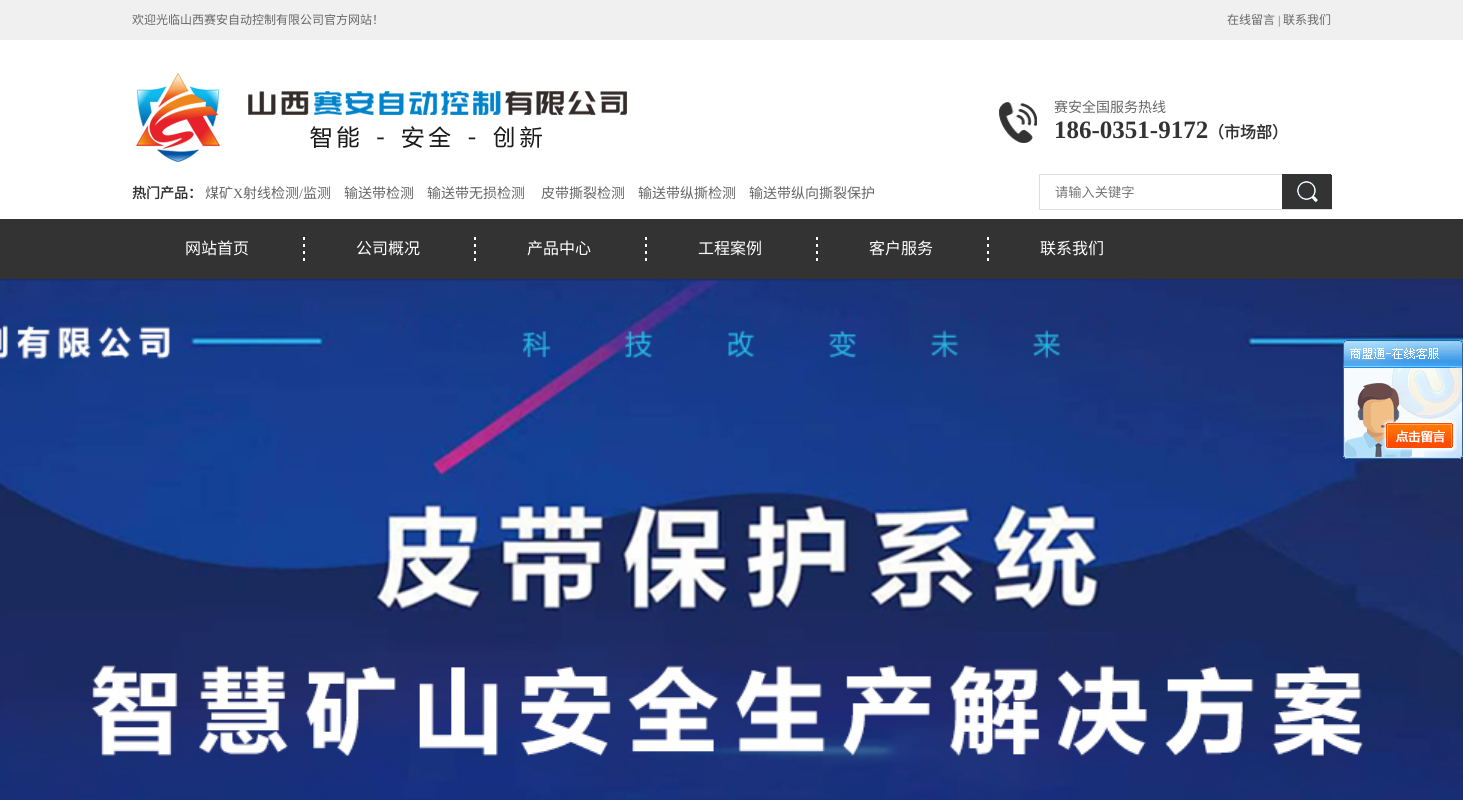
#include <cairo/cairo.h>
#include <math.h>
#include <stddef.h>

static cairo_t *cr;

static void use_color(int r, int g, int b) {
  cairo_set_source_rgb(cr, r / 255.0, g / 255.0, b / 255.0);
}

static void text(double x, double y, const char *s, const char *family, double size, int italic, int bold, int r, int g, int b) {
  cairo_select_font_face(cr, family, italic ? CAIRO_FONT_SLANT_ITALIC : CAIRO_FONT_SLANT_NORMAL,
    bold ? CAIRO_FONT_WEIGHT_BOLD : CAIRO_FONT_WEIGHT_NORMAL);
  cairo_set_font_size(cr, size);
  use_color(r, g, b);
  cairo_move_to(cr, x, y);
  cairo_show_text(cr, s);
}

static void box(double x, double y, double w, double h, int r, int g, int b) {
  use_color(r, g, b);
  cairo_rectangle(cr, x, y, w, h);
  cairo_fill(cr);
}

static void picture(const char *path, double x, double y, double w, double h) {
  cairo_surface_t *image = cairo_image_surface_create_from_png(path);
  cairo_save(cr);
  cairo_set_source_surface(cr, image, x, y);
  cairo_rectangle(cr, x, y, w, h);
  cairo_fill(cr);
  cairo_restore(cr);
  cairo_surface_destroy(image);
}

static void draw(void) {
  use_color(255, 255, 255);
  cairo_paint(cr);
  box(0, 0, 1463, 40, 240, 240, 240);
  picture("img_01.png", 136, 73, 491, 89);
  picture("img_02.png", 999, 102, 38, 41);
  cairo_rectangle(cr, 1039.5, 174.5, 292, 35);
  use_color(221, 221, 221);
  cairo_set_line_width(cr, 1);
  cairo_stroke(cr);
  picture("img_03.png", 1282, 174, 50, 35);
  box(0, 219, 1463, 60, 51, 51, 51);
  picture("img_04.png", 303, 237, 2, 24);
  picture("img_04.png", 474, 237, 2, 24);
  picture("img_04.png", 645, 237, 2, 24);
  picture("img_04.png", 816, 237, 2, 24);
  picture("img_04.png", 987, 237, 2, 24);
  picture("img_05.png", 0, 279, 1463, 521);
  picture("img_06.png", 1343, 340, 120, 119);
  text(132, 24, "欢迎光临山西赛安自动控制有限公司官方网站！", "Noto Sans CJK SC", 12, 0, 0, 102, 102, 102);
  text(1227, 24, "在线留言", "Noto Sans CJK SC", 12, 0, 0, 102, 102, 102);
  text(1278, 24, "|", "Liberation Serif", 12, 0, 0, 102, 102, 102);
  text(1283, 24, "联系我们", "Noto Sans CJK SC", 12, 0, 0, 102, 102, 102);
  text(1054, 112, "赛安全国服务热线", "Noto Sans CJK SC", 14, 0, 0, 102, 102, 102);
  text(1054, 138, "186-0351-9172", "Liberation Serif", 25, 0, 1, 51, 51, 51);
  text(1208, 138, "（市场部）", "Noto Sans CJK SC", 16, 0, 1, 51, 51, 51);
  text(132, 198, "热门产品：", "Noto Sans CJK SC", 14, 0, 1, 51, 51, 51);
  text(205, 198, "煤矿", "Noto Sans CJK SC", 14, 0, 0, 102, 102, 102);
  text(233, 198, "X", "Liberation Serif", 14, 0, 0, 102, 102, 102);
  text(243, 198, "射线检测", "Noto Sans CJK SC", 14, 0, 0, 102, 102, 102);
  text(299, 198, "/", "Liberation Serif", 14, 0, 0, 102, 102, 102);
  text(303, 198, "监测", "Noto Sans CJK SC", 14, 0, 0, 102, 102, 102);
  text(344, 198, "输送带检测", "Noto Sans CJK SC", 14, 0, 0, 102, 102, 102);
  text(427, 198, "输送带无损检测", "Noto Sans CJK SC", 14, 0, 0, 102, 102, 102);
  text(541, 198, "皮带撕裂检测", "Noto Sans CJK SC", 14, 0, 0, 102, 102, 102);
  text(638, 198, "输送带纵撕检测", "Noto Sans CJK SC", 14, 0, 0, 102, 102, 102);
  text(749, 198, "输送带纵向撕裂保护", "Noto Sans CJK SC", 14, 0, 0, 102, 102, 102);
  text(1055, 197, "请输入关键字", "Noto Sans CJK SC", 13.25, 0, 0, 117, 117, 117);
  text(185, 254, "网站首页", "Noto Sans CJK SC", 16, 0, 0, 255, 255, 255);
  text(356, 254, "公司概况", "Noto Sans CJK SC", 16, 0, 0, 255, 255, 255);
  text(527, 254, "产品中心", "Noto Sans CJK SC", 16, 0, 0, 255, 255, 255);
  text(698, 254, "工程案例", "Noto Sans CJK SC", 16, 0, 0, 255, 255, 255);
  text(869, 254, "客户服务", "Noto Sans CJK SC", 16, 0, 0, 255, 255, 255);
  text(1040, 254, "联系我们", "Noto Sans CJK SC", 16, 0, 0, 255, 255, 255);
}

int main(void) {
  cairo_surface_t *surface = cairo_image_surface_create(CAIRO_FORMAT_RGB24, 1463, 800);
  cr = cairo_create(surface);
  cairo_font_options_t *options = cairo_font_options_create();
  cairo_font_options_set_hint_metrics(options, CAIRO_HINT_METRICS_OFF);
  cairo_font_options_set_hint_style(options, CAIRO_HINT_STYLE_NONE);
  cairo_set_font_options(cr, options);
  cairo_set_miter_limit(cr, 4);
  draw();
  cairo_surface_write_to_png(surface, "out.png");
  cairo_font_options_destroy(options);
  cairo_destroy(cr);
  cairo_surface_destroy(surface);
  return 0;
}
